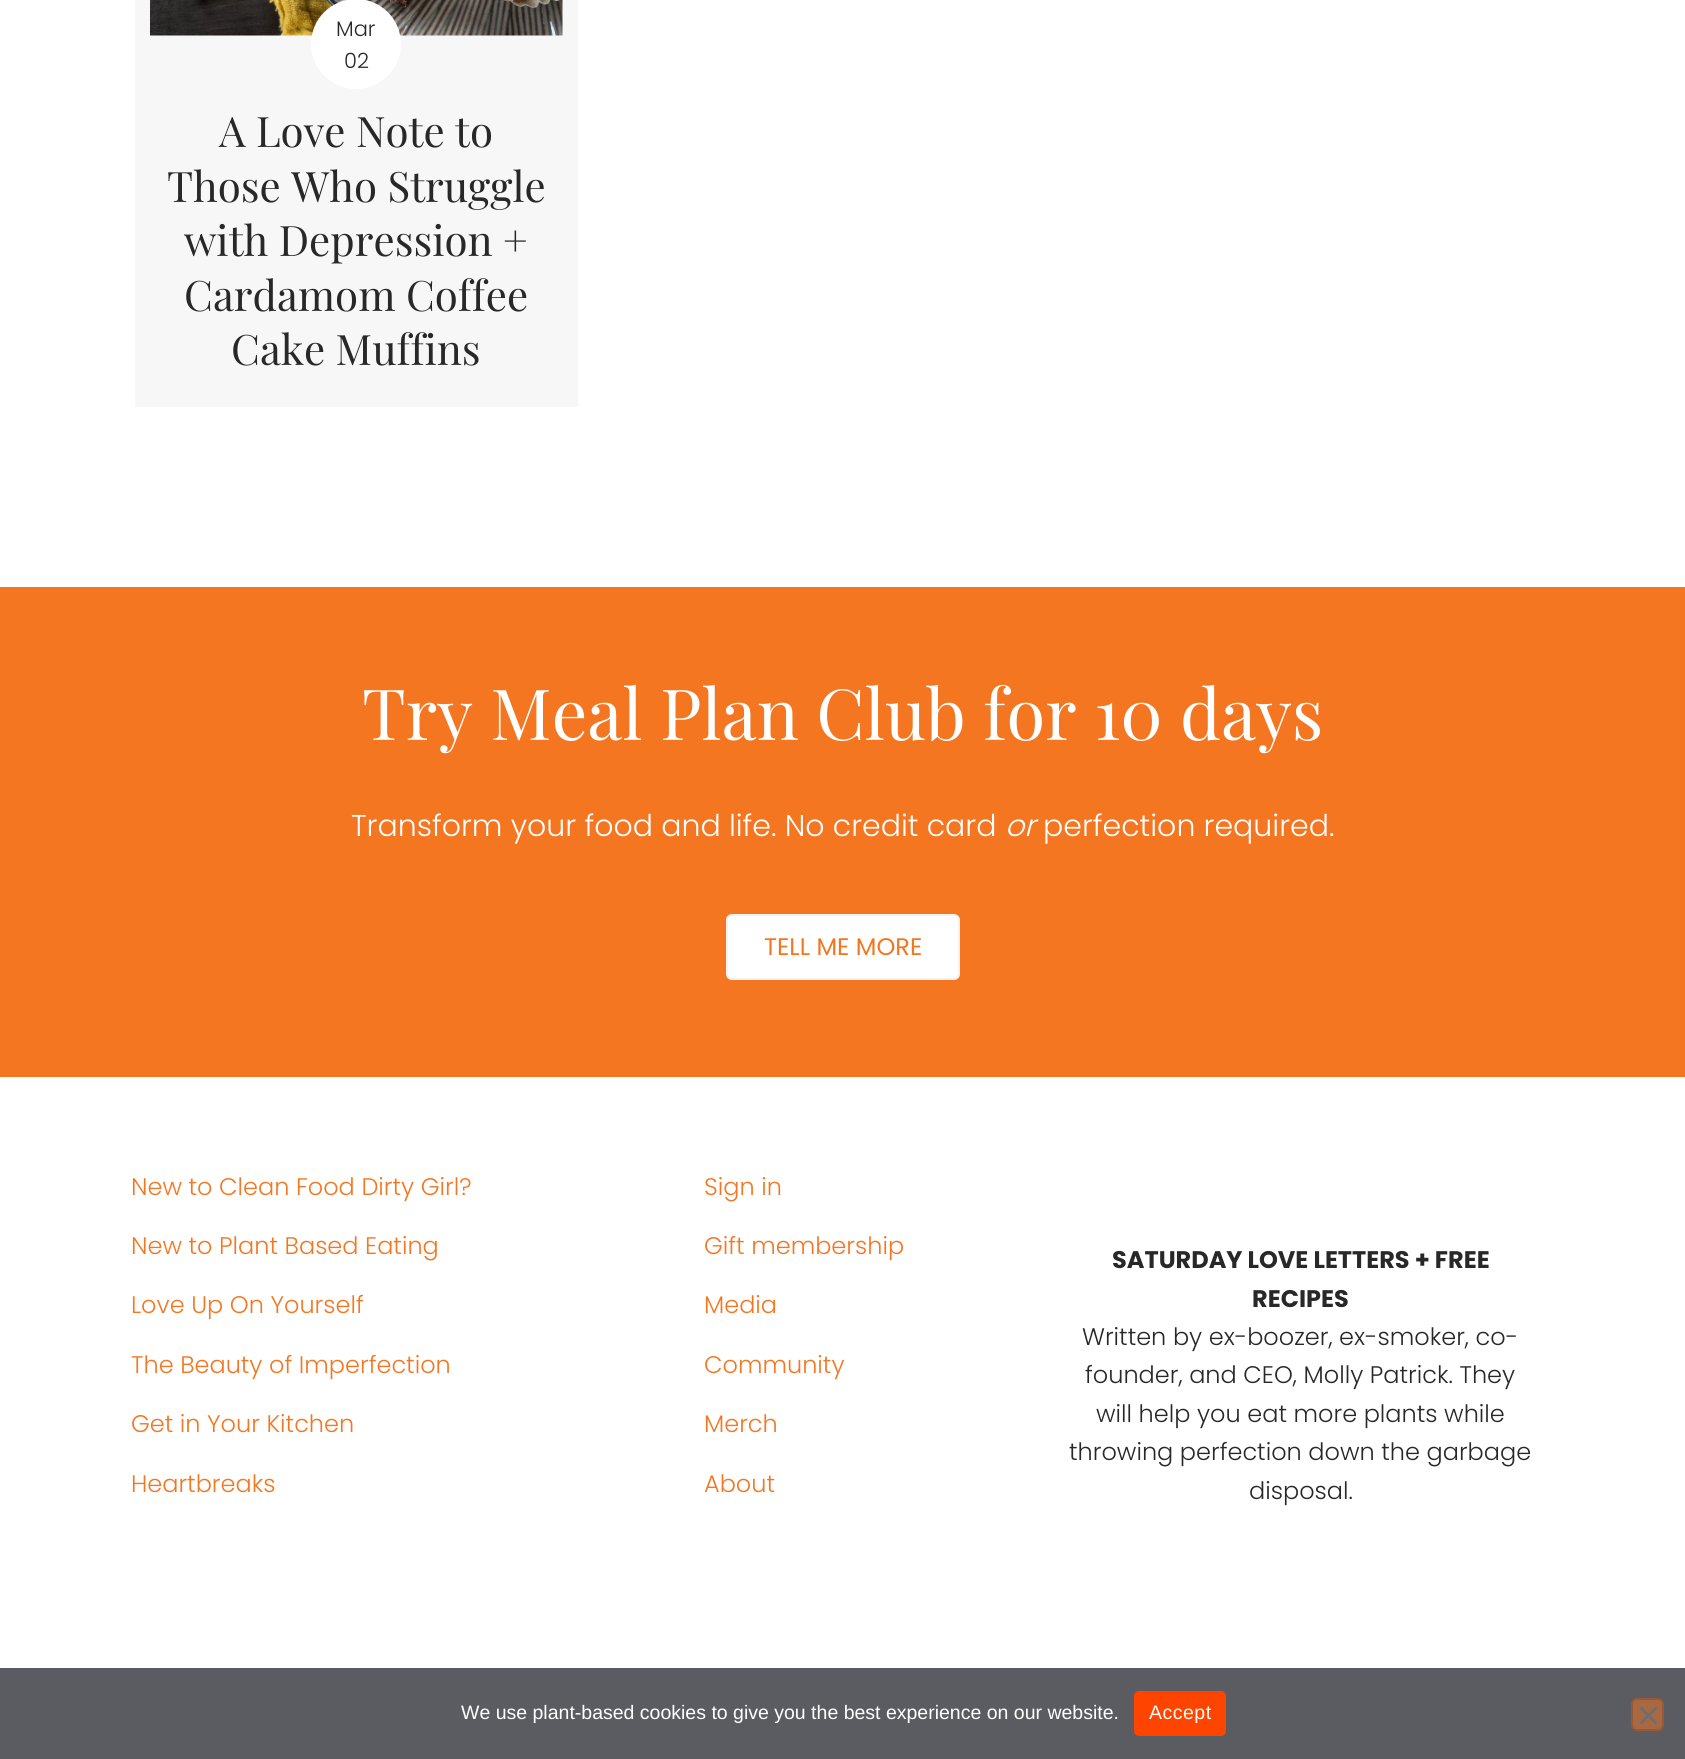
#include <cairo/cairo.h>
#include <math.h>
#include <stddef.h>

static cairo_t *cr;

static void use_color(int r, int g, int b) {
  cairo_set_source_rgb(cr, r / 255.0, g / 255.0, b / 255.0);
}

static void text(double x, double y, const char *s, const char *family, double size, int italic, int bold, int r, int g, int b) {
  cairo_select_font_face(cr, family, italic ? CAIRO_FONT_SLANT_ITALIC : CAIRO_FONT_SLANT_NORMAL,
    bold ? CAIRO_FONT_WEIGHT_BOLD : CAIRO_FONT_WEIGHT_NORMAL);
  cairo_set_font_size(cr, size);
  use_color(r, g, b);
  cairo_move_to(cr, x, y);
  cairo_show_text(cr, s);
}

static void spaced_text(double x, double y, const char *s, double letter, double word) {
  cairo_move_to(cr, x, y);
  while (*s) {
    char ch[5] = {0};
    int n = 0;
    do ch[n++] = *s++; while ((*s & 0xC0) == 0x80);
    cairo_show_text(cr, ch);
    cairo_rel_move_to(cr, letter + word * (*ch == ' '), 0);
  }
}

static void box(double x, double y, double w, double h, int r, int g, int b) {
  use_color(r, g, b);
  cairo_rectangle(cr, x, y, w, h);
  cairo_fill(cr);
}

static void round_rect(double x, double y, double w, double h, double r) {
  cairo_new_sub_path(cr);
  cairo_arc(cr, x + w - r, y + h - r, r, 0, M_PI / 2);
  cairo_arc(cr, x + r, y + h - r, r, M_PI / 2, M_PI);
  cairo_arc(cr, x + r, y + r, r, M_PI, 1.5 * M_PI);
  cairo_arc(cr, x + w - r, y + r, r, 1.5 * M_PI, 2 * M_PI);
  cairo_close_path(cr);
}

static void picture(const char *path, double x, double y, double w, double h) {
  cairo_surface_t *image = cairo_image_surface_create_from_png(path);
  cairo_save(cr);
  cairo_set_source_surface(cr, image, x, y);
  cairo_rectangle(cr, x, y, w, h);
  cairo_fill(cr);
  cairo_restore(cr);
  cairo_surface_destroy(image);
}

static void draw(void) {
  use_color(255, 255, 255);
  cairo_paint(cr);
  box(135, 0, 443, 407, 247, 247, 247);
  picture("img_01.png", 150, 0, 413, 36);
  use_color(255, 255, 255);
  cairo_arc(cr, 356, 44, 45, 0, 2 * M_PI);
  cairo_fill(cr);
  box(0, 587, 1685, 490, 244, 118, 33);
  use_color(255, 255, 255);
  round_rect(727, 915, 232, 64, 5);
  cairo_fill_preserve(cr);
  use_color(243, 243, 243);
  cairo_stroke(cr);
  box(0, 1668, 1685, 91, 91, 91, 98);
  use_color(255, 68, 0);
  round_rect(1134, 1691, 92, 45, 5);
  cairo_fill(cr);
  use_color(168, 105, 66);
  round_rect(1632, 1699, 31, 31, 5);
  cairo_fill_preserve(cr);
  use_color(149, 90, 54);
  cairo_stroke(cr);
  use_color(110, 110, 113);
  cairo_new_path(cr);
  cairo_move_to(cr, 1655.5, 1706.5);
  cairo_line_to(cr, 1657.5, 1708.5);
  cairo_line_to(cr, 1641.5, 1724.5);
  cairo_line_to(cr, 1639.5, 1722.5);
  cairo_close_path(cr);
  cairo_fill(cr);
  cairo_new_path(cr);
  cairo_move_to(cr, 1639.5, 1708.5);
  cairo_line_to(cr, 1641.5, 1706.5);
  cairo_line_to(cr, 1657.5, 1722.5);
  cairo_line_to(cr, 1655.5, 1724.5);
  cairo_close_path(cr);
  cairo_fill(cr);
  text(336, 36, "Mar", "Poppins Light", 21, 0, 0, 40, 40, 40);
  text(344, 68, "02", "Poppins Light", 21, 0, 0, 40, 40, 40);
  text(219, 147, "A Love Note to", "Playfair Display", 42, 0, 0, 40, 40, 40);
  text(167, 202, "Those Who Struggle", "Playfair Display", 42, 0, 0, 40, 40, 40);
  text(184, 256, "with Depression +", "Playfair Display", 42, 0, 0, 40, 40, 40);
  text(184, 311, "Cardamom Coffee", "Playfair Display", 42, 0, 0, 40, 40, 40);
  text(231, 365, "Cake Muffins", "Playfair Display", 42, 0, 0, 40, 40, 40);
  text(362, 740, "Try Meal Plan Club for 10 days", "Playfair Display", 70.5, 0, 0, 255, 255, 255);
  text(351, 836, "Transform your food and life. No credit card", "Poppins Light", 30, 0, 0, 255, 255, 255);
  text(1005, 836, "or", "Poppins Light", 30, 1, 0, 255, 255, 255);
  text(1043, 836, "perfection required.", "Poppins Light", 30, 0, 0, 255, 255, 255);
  text(764, 955, "TELL ME MORE", "Poppins", 24, 0, 0, 244, 118, 33);
  text(131, 1195, "New to Clean Food Dirty Girl?", "Poppins Light", 24, 0, 0, 244, 118, 33);
  text(131, 1254, "New to Plant Based Eating", "Poppins Light", 24, 0, 0, 244, 118, 33);
  text(131, 1313, "Love Up On Yourself", "Poppins Light", 24, 0, 0, 244, 118, 33);
  text(131, 1373, "The Beauty of Imperfection", "Poppins Light", 24, 0, 0, 244, 118, 33);
  text(131, 1432, "Get in Your Kitchen", "Poppins Light", 24, 0, 0, 244, 118, 33);
  text(131, 1492, "Heartbreaks", "Poppins Light", 24, 0, 0, 244, 118, 33);
  text(704, 1195, "Sign in", "Poppins Light", 24, 0, 0, 244, 118, 33);
  text(704, 1254, "Gift membership", "Poppins Light", 24, 0, 0, 244, 118, 33);
  text(704, 1313, "Media", "Poppins Light", 24, 0, 0, 244, 118, 33);
  text(704, 1373, "Community", "Poppins Light", 24, 0, 0, 244, 118, 33);
  text(704, 1432, "Merch", "Poppins Light", 24, 0, 0, 244, 118, 33);
  text(704, 1492, "About", "Poppins Light", 24, 0, 0, 244, 118, 33);
  text(1112, 1268, "SATURDAY LOVE LETTERS + FREE", "Poppins", 24, 0, 1, 40, 40, 40);
  text(1252, 1307, "RECIPES", "Poppins", 24, 0, 1, 40, 40, 40);
  text(1082, 1345, "Written by ex-boozer, ex-smoker, co-", "Poppins Light", 24, 0, 0, 40, 40, 40);
  text(1085, 1383, "founder, and CEO, Molly Patrick. They", "Poppins Light", 24, 0, 0, 40, 40, 40);
  text(1096, 1422, "will help you eat more plants while", "Poppins Light", 24, 0, 0, 40, 40, 40);
  text(1069, 1460, "throwing perfection down the garbage", "Poppins Light", 24, 0, 0, 40, 40, 40);
  text(1249, 1499, "disposal.", "Poppins Light", 24, 0, 0, 40, 40, 40);
  text(461, 1719, "We use plant-based cookies to give you the best experience on our website.", "Liberation Sans", 19.5, 0, 0, 255, 255, 255);
  spaced_text(1149, 1719, "Accept", 0.5, 0);
}

int main(void) {
  cairo_surface_t *surface = cairo_image_surface_create(CAIRO_FORMAT_RGB24, 1685, 1759);
  cr = cairo_create(surface);
  cairo_font_options_t *options = cairo_font_options_create();
  cairo_font_options_set_hint_metrics(options, CAIRO_HINT_METRICS_OFF);
  cairo_font_options_set_hint_style(options, CAIRO_HINT_STYLE_NONE);
  cairo_set_font_options(cr, options);
  cairo_set_miter_limit(cr, 4);
  draw();
  cairo_surface_write_to_png(surface, "out.png");
  cairo_font_options_destroy(options);
  cairo_destroy(cr);
  cairo_surface_destroy(surface);
  return 0;
}
